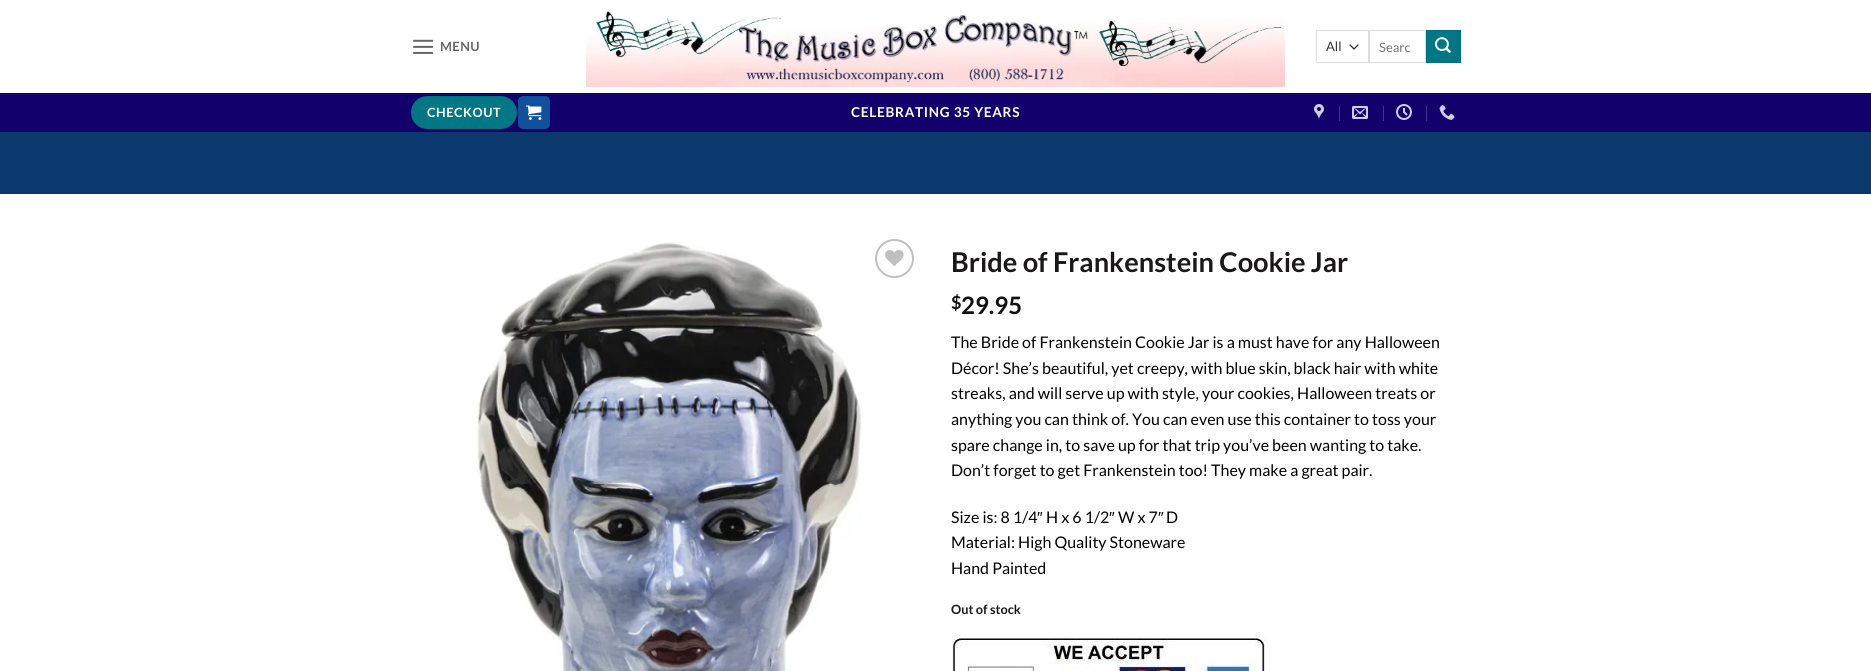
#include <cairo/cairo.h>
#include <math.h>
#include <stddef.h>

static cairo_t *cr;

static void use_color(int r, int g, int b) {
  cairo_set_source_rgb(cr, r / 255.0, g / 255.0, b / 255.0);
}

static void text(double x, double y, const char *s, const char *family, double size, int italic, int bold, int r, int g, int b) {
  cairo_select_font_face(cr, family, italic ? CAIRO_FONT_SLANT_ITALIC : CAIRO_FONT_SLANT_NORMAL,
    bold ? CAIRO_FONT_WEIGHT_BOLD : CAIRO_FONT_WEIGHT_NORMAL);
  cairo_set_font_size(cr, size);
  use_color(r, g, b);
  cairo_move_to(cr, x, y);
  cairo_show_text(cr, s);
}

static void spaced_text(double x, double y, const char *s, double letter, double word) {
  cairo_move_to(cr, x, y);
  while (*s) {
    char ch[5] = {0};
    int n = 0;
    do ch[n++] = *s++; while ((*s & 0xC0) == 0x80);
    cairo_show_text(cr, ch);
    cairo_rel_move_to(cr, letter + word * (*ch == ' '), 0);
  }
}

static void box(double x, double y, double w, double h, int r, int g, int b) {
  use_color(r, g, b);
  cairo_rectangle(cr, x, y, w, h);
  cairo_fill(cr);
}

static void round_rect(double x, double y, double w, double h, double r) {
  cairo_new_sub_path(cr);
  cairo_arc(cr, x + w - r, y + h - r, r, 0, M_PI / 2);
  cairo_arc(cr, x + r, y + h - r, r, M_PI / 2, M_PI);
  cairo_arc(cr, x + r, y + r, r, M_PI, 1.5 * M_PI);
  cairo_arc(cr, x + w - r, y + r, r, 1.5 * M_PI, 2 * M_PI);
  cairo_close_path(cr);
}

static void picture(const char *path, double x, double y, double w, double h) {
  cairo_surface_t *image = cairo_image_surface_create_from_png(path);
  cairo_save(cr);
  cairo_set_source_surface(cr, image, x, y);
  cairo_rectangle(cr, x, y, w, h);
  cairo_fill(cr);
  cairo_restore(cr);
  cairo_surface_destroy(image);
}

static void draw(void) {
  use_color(255, 255, 255);
  cairo_paint(cr);
  picture("img_01.png", 413, 39, 21, 15);
  picture("img_02.png", 586, 11, 699, 76);
  cairo_new_path(cr);
  cairo_move_to(cr, 1350, 45);
  cairo_line_to(cr, 1354, 49);
  cairo_line_to(cr, 1358, 45);
  use_color(51, 51, 51);
  cairo_set_line_width(cr, 1.3);
  cairo_set_line_cap(cr, CAIRO_LINE_CAP_ROUND);
  cairo_set_line_join(cr, CAIRO_LINE_JOIN_ROUND);
  cairo_stroke(cr);
  cairo_rectangle(cr, 1316.5, 30.5, 52, 32);
  use_color(221, 221, 221);
  cairo_set_line_width(cr, 1);
  cairo_set_line_cap(cr, CAIRO_LINE_CAP_BUTT);
  cairo_set_line_join(cr, CAIRO_LINE_JOIN_MITER);
  cairo_stroke(cr);
  cairo_rectangle(cr, 1369.5, 30.5, 56, 32);
  cairo_stroke(cr);
  use_color(0, 119, 132);
  cairo_rectangle(cr, 1426.5, 30.5, 34, 32);
  cairo_fill_preserve(cr);
  use_color(0, 113, 125);
  cairo_stroke(cr);
  picture("img_03.png", 1435, 37, 16, 16);
  box(0, 93, 1871, 39, 18, 0, 109);
  box(411, 93, 1050, 1, 18, 2, 100);
  use_color(0, 119, 132);
  round_rect(411, 96, 106, 33, 16.5);
  cairo_fill(cr);
  cairo_rectangle(cr, 411.5, 96.5, 105, 32);
  cairo_set_source_rgba(cr, 0, 0, 0, 0.05);
  cairo_stroke(cr);
  use_color(17, 81, 155);
  round_rect(518, 96, 32, 33, 5);
  cairo_fill(cr);
  cairo_rectangle(cr, 518.5, 96.5, 31, 32);
  cairo_set_source_rgba(cr, 0, 0, 0, 0.05);
  cairo_stroke(cr);
  picture("img_04.png", 526, 105, 16, 15);
  picture("img_05.png", 1314, 104, 10, 16);
  box(1339, 106, 1, 15, 65, 51, 138);
  picture("img_06.png", 1352, 106, 16, 13);
  box(1383, 106, 1, 15, 65, 51, 138);
  picture("img_07.png", 1396, 104, 16, 16);
  box(1426, 106, 1, 15, 65, 51, 138);
  picture("img_08.png", 1439, 105, 16, 15);
  box(0, 132, 1871, 62, 12, 57, 109);
  picture("img_09.png", 476, 242, 386, 429);
  cairo_arc(cr, 894.5, 258.5, 18.5, 0, 2 * M_PI);
  use_color(192, 192, 192);
  cairo_set_line_width(cr, 2);
  cairo_stroke(cr);
  picture("img_10.png", 885, 250, 19, 16);
  picture("img_11.png", 951, 632, 314, 39);
  cairo_select_font_face(cr, "Lato", CAIRO_FONT_SLANT_NORMAL, CAIRO_FONT_WEIGHT_BOLD);
  cairo_set_font_size(cr, 12.75);
  use_color(101, 101, 101);
  spaced_text(440, 51, "MENU", 0.5, 0);
  text(1326, 51, "All", "Lato", 13, 0, 0, 51, 51, 51);
  text(1379, 52, "Searc", "Lato", 13, 0, 0, 117, 117, 117);
  cairo_select_font_face(cr, "Lato", CAIRO_FONT_SLANT_NORMAL, CAIRO_FONT_WEIGHT_BOLD);
  cairo_set_font_size(cr, 12.75);
  use_color(255, 255, 255);
  spaced_text(427, 117, "CHECKOUT", 0.5, 0);
  cairo_set_font_size(cr, 13.6);
  spaced_text(851, 117, "CELEBRATING 35 YEARS", 0.7, 0);
  text(951, 272, "Bride of Frankenstein Cookie Jar", "Lato", 27.25, 0, 1, 26, 24, 24);
  text(951, 309, "$", "Lato", 18, 0, 1, 17, 17, 17);
  text(961, 314, "29.95", "Lato", 24, 0, 1, 17, 17, 17);
  text(951, 348, "The Bride of Frankenstein Cookie Jar is a must have for any Halloween", "Lato", 16, 0, 0, 0, 0, 0);
  text(951, 374, "Décor! She’s beautiful, yet creepy, with blue skin, black hair with white", "Lato", 16, 0, 0, 0, 0, 0);
  text(951, 399, "streaks, and will serve up with style, your cookies, Halloween treats or", "Lato", 16, 0, 0, 0, 0, 0);
  text(951, 425, "anything you can think of. You can even use this container to toss your", "Lato", 16, 0, 0, 0, 0, 0);
  text(951, 451, "spare change in, to save up for that trip you’ve been wanting to take.", "Lato", 16, 0, 0, 0, 0, 0);
  text(951, 476, "Don’t forget to get Frankenstein too! They make a great pair.", "Lato", 16, 0, 0, 0, 0, 0);
  text(951, 523, "Size is: 8 1/4", "Lato", 16, 0, 0, 0, 0, 0);
  text(1037, 523, "″", "Liberation Sans", 16, 0, 0, 0, 0, 0);
  text(1046, 523, "H x 6 1/2", "Lato", 16, 0, 0, 0, 0, 0);
  text(1109, 523, "″", "Liberation Sans", 16, 0, 0, 0, 0, 0);
  text(1118, 523, "W x 7", "Lato", 16, 0, 0, 0, 0, 0);
  text(1158, 523, "″", "Liberation Sans", 16, 0, 0, 0, 0, 0);
  text(1166, 523, "D", "Lato", 16, 0, 0, 0, 0, 0);
  text(951, 548, "Material: High Quality Stoneware", "Lato", 16, 0, 0, 0, 0, 0);
  text(951, 574, "Hand Painted", "Lato", 16, 0, 0, 0, 0, 0);
  text(951, 614, "Out of stock", "Lato", 12.75, 0, 1, 26, 24, 24);
}

int main(void) {
  cairo_surface_t *surface = cairo_image_surface_create(CAIRO_FORMAT_RGB24, 1871, 671);
  cr = cairo_create(surface);
  cairo_font_options_t *options = cairo_font_options_create();
  cairo_font_options_set_hint_metrics(options, CAIRO_HINT_METRICS_OFF);
  cairo_font_options_set_hint_style(options, CAIRO_HINT_STYLE_NONE);
  cairo_set_font_options(cr, options);
  cairo_set_miter_limit(cr, 4);
  draw();
  cairo_surface_write_to_png(surface, "out.png");
  cairo_font_options_destroy(options);
  cairo_destroy(cr);
  cairo_surface_destroy(surface);
  return 0;
}
